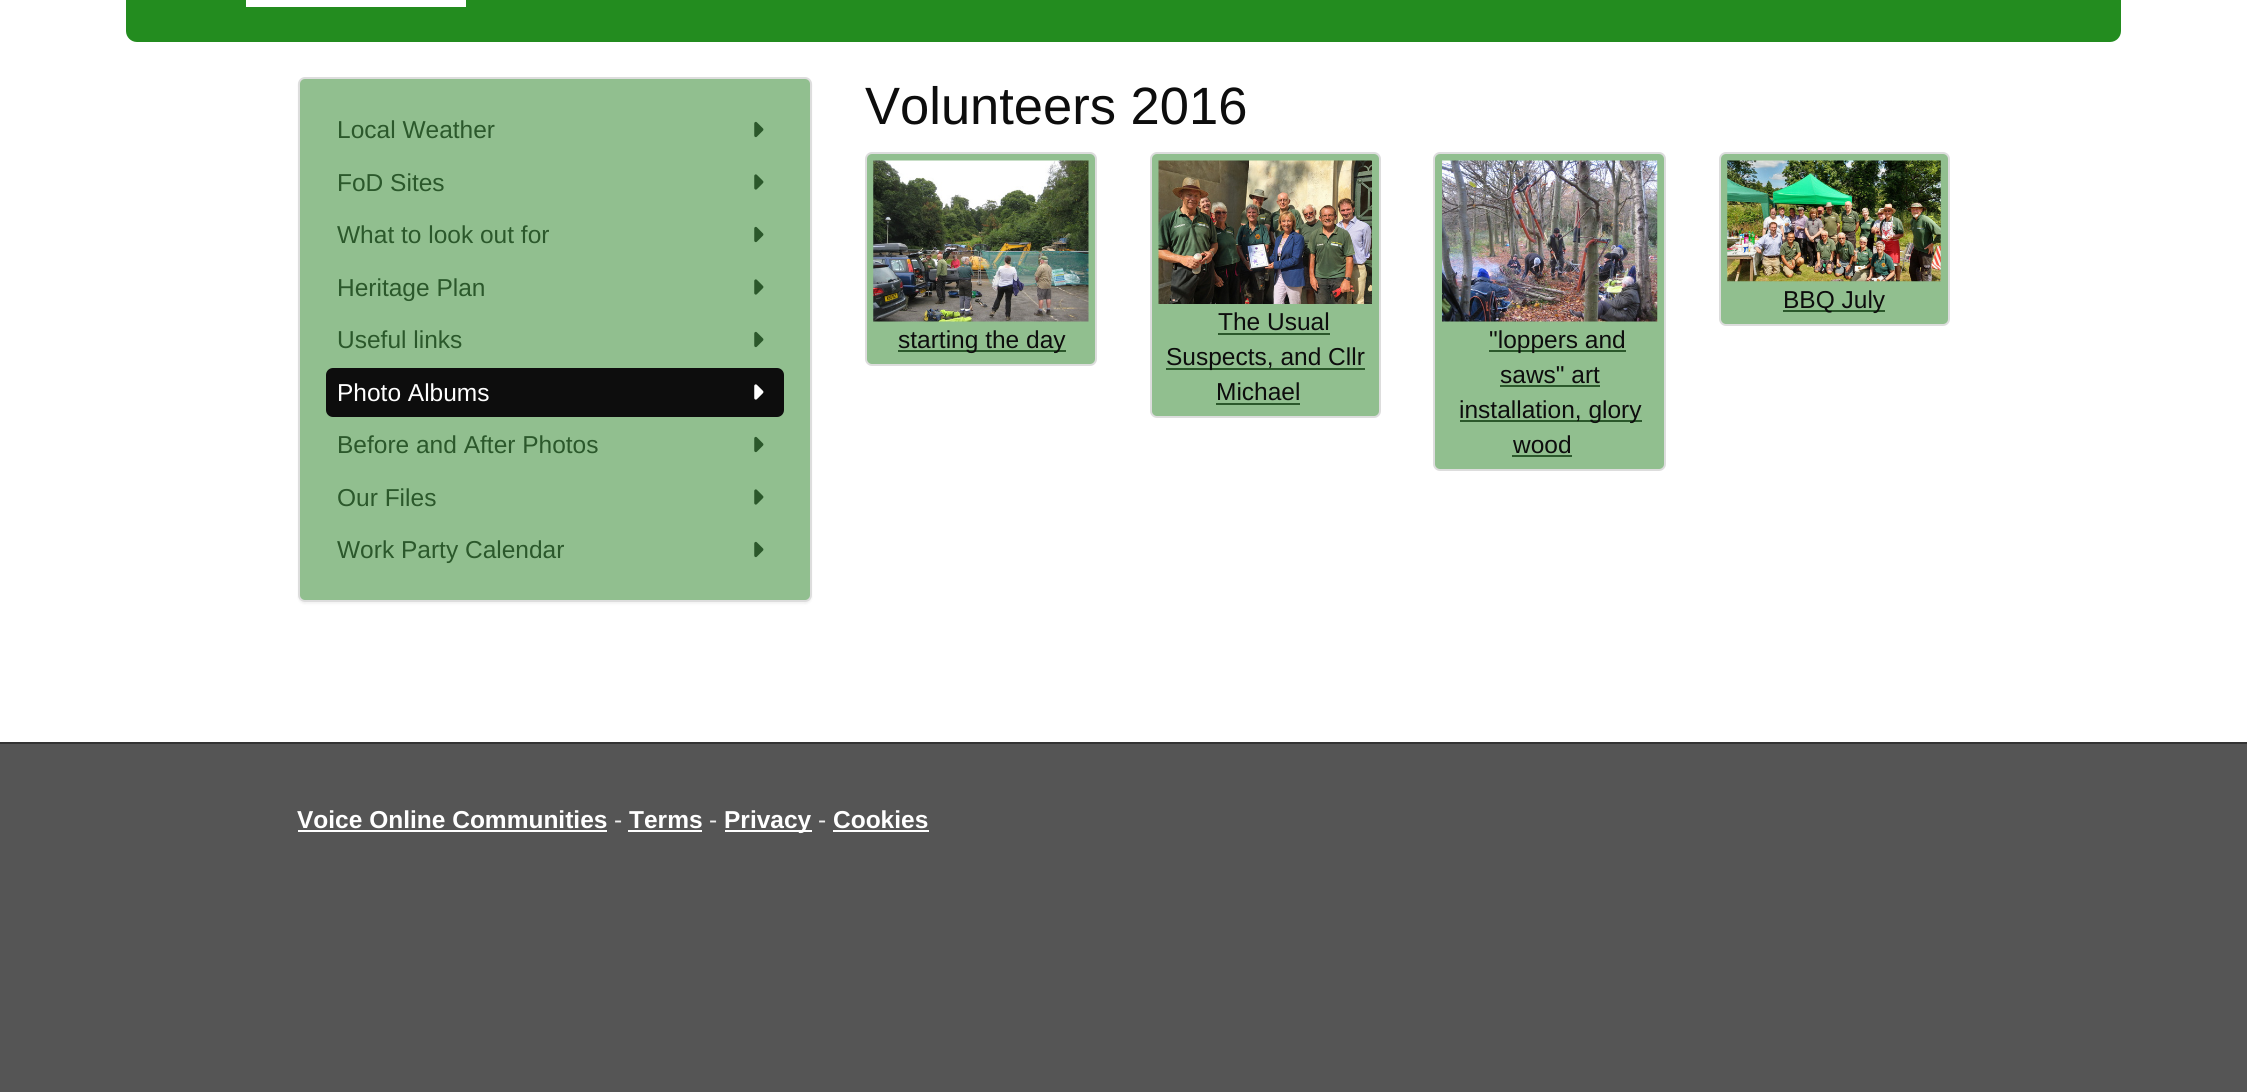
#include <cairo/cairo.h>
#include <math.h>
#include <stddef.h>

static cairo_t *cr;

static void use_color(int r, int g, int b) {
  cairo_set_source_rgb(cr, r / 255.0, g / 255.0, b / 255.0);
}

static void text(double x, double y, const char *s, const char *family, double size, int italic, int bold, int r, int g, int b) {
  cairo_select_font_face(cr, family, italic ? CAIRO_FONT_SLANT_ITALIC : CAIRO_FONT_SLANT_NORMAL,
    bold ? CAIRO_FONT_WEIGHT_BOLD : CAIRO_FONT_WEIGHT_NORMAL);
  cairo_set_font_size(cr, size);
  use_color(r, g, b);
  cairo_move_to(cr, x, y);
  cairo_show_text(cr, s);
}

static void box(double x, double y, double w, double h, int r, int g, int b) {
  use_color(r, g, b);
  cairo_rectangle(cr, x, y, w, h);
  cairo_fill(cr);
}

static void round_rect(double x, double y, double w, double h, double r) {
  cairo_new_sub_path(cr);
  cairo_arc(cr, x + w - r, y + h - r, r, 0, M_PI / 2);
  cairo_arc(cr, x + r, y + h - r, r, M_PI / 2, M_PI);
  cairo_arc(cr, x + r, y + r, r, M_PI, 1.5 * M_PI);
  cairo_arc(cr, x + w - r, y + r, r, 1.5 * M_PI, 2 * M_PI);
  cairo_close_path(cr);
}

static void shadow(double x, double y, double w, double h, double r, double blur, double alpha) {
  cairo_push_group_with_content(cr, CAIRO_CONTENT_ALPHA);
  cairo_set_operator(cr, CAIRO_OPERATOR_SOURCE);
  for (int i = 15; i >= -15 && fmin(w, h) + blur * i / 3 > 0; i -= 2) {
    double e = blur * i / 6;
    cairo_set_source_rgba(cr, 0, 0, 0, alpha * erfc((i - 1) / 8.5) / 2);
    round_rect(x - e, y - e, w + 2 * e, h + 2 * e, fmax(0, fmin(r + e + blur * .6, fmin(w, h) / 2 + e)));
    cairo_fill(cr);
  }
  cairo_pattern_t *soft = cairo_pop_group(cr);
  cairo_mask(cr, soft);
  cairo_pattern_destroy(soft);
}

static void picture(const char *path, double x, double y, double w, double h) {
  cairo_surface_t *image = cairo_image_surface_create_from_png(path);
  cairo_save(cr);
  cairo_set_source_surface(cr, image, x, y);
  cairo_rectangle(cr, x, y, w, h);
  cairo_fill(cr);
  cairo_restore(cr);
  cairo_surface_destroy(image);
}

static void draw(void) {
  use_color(255, 255, 255);
  cairo_paint(cr);
  use_color(35, 140, 31);
  round_rect(126, -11, 1995, 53, 11);
  cairo_fill(cr);
  box(246, 0, 220, 7, 255, 255, 255);
  use_color(0, 0, 0);
  shadow(298, 79, 514, 525, 7, 1, 0.05);
  use_color(145, 191, 143);
  round_rect(299, 78, 512, 523, 6);
  cairo_fill_preserve(cr);
  use_color(221, 221, 221);
  cairo_stroke(cr);
  picture("img_01.png", 754, 121, 10, 17);
  picture("img_02.png", 754, 174, 10, 16);
  picture("img_01.png", 754, 226, 10, 17);
  picture("img_02.png", 754, 279, 10, 16);
  picture("img_01.png", 754, 331, 10, 17);
  use_color(13, 13, 13);
  round_rect(326, 368, 458, 49, 7);
  cairo_fill(cr);
  picture("img_03.png", 754, 384, 10, 16);
  picture("img_01.png", 754, 436, 10, 17);
  picture("img_02.png", 754, 489, 10, 16);
  picture("img_01.png", 754, 541, 10, 17);
  use_color(145, 191, 143);
  round_rect(1720, 153, 229, 172, 6);
  cairo_fill_preserve(cr);
  use_color(221, 221, 221);
  cairo_stroke(cr);
  picture("img_04.png", 1727, 160, 214, 122);
  box(1783, 310, 102, 2, 43, 88, 43);
  use_color(145, 191, 143);
  round_rect(866, 153, 230, 212, 6);
  cairo_fill_preserve(cr);
  use_color(221, 221, 221);
  cairo_stroke(cr);
  picture("img_05.png", 873, 160, 216, 162);
  box(898, 350, 168, 2, 43, 88, 43);
  use_color(145, 191, 143);
  round_rect(1151, 153, 229, 264, 6);
  cairo_fill_preserve(cr);
  use_color(221, 221, 221);
  cairo_stroke(cr);
  picture("img_06.png", 1158, 160, 214, 144);
  box(1218, 333, 112, 2, 43, 88, 43);
  box(1166, 368, 199, 2, 43, 88, 43);
  box(1216, 403, 84, 2, 43, 88, 43);
  use_color(145, 191, 143);
  round_rect(1434, 153, 231, 317, 6);
  cairo_fill_preserve(cr);
  use_color(221, 221, 221);
  cairo_stroke(cr);
  picture("img_07.png", 1442, 160, 216, 162);
  box(1489, 350, 137, 2, 43, 88, 43);
  box(1500, 385, 100, 2, 43, 88, 43);
  box(1460, 420, 182, 2, 43, 88, 43);
  box(1512, 455, 60, 2, 43, 88, 43);
  box(0, 744, 2247, 348, 85, 85, 85);
  box(0, 742, 2247, 2, 51, 51, 51);
  box(298, 830, 309, 2, 255, 255, 255);
  box(628, 830, 74, 2, 255, 255, 255);
  box(725, 830, 87, 2, 255, 255, 255);
  box(833, 830, 96, 2, 255, 255, 255);
  text(337, 138, "Local Weather", "Liberation Sans", 24.5, 0, 0, 43, 88, 43);
  text(337, 191, "FoD Sites", "Liberation Sans", 24.5, 0, 0, 43, 88, 43);
  text(337, 243, "What to look out for", "Liberation Sans", 24.5, 0, 0, 43, 88, 43);
  text(337, 296, "Heritage Plan", "Liberation Sans", 24.5, 0, 0, 43, 88, 43);
  text(337, 348, "Useful links", "Liberation Sans", 24.5, 0, 0, 43, 88, 43);
  text(337, 401, "Photo Albums", "Liberation Sans", 24.5, 0, 0, 255, 255, 255);
  text(337, 453, "Before and After Photos", "Liberation Sans", 24.5, 0, 0, 43, 88, 43);
  text(337, 506, "Our Files", "Liberation Sans", 24.5, 0, 0, 43, 88, 43);
  text(337, 558, "Work Party Calendar", "Liberation Sans", 24.5, 0, 0, 43, 88, 43);
  text(865, 124, "Volunteers 2016", "Liberation Sans", 52.5, 0, 0, 13, 13, 13);
  text(1783, 308, "BBQ July", "Liberation Sans", 24.5, 0, 0, 13, 13, 13);
  text(898, 348, "starting the day", "Liberation Sans", 24.5, 0, 0, 13, 13, 13);
  text(1218, 330, "The Usual", "Liberation Sans", 24.5, 0, 0, 13, 13, 13);
  text(1166, 365, "Suspects, and Cllr", "Liberation Sans", 24.5, 0, 0, 13, 13, 13);
  text(1216, 400, "Michael", "Liberation Sans", 24.5, 0, 0, 13, 13, 13);
  text(1489, 348, "\"loppers and", "Liberation Sans", 24.5, 0, 0, 13, 13, 13);
  text(1500, 383, "saws\" art", "Liberation Sans", 24.5, 0, 0, 13, 13, 13);
  text(1459, 418, "installation, glory", "Liberation Sans", 24.5, 0, 0, 13, 13, 13);
  text(1513, 453, "wood", "Liberation Sans", 24.5, 0, 0, 13, 13, 13);
  text(297, 828, "Voice Online Communities", "Liberation Sans", 24.5, 0, 1, 255, 255, 255);
  text(614, 828, "-", "Liberation Sans", 24.5, 0, 0, 238, 238, 238);
  text(629, 828, "Terms", "Liberation Sans", 24.5, 0, 1, 255, 255, 255);
  text(709, 828, "-", "Liberation Sans", 24.5, 0, 0, 238, 238, 238);
  text(724, 828, "Privacy", "Liberation Sans", 24.5, 0, 1, 255, 255, 255);
  text(818, 828, "-", "Liberation Sans", 24.5, 0, 0, 238, 238, 238);
  text(833, 828, "Cookies", "Liberation Sans", 24.5, 0, 1, 255, 255, 255);
}

int main(void) {
  cairo_surface_t *surface = cairo_image_surface_create(CAIRO_FORMAT_RGB24, 2247, 1092);
  cr = cairo_create(surface);
  cairo_font_options_t *options = cairo_font_options_create();
  cairo_font_options_set_hint_metrics(options, CAIRO_HINT_METRICS_OFF);
  cairo_font_options_set_hint_style(options, CAIRO_HINT_STYLE_NONE);
  cairo_set_font_options(cr, options);
  cairo_set_miter_limit(cr, 4);
  draw();
  cairo_surface_write_to_png(surface, "out.png");
  cairo_font_options_destroy(options);
  cairo_destroy(cr);
  cairo_surface_destroy(surface);
  return 0;
}
